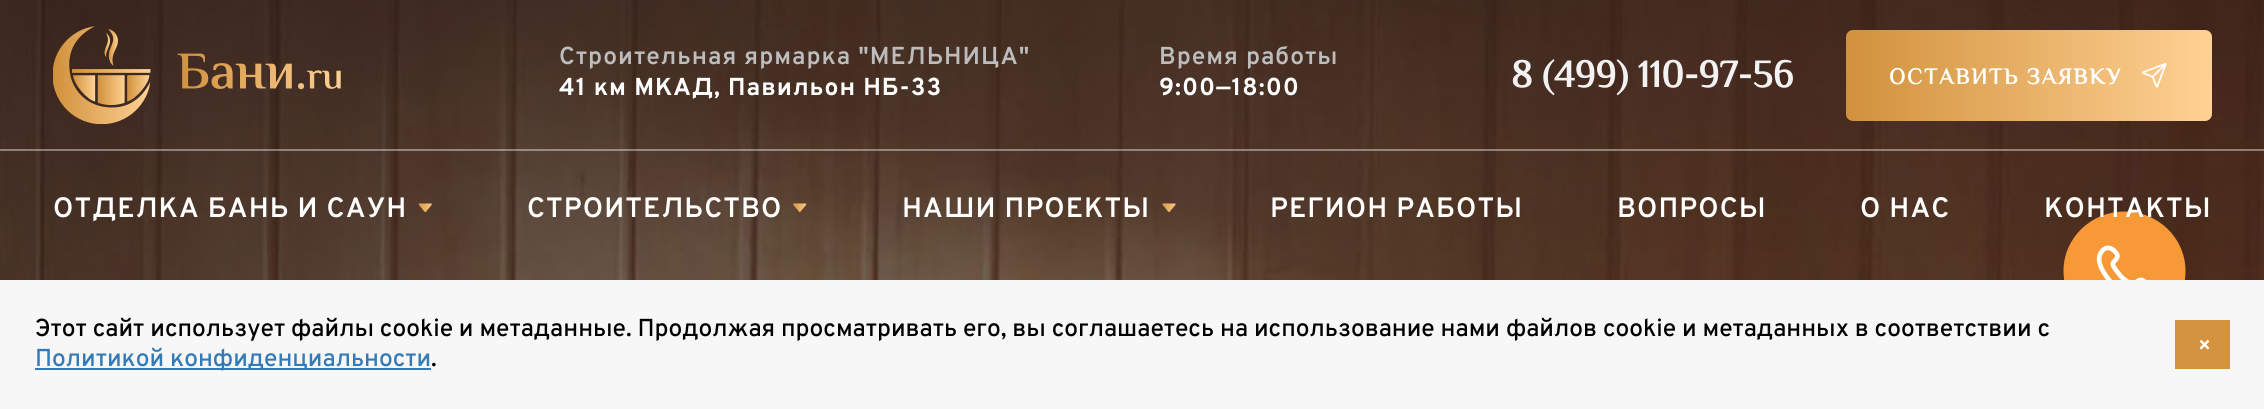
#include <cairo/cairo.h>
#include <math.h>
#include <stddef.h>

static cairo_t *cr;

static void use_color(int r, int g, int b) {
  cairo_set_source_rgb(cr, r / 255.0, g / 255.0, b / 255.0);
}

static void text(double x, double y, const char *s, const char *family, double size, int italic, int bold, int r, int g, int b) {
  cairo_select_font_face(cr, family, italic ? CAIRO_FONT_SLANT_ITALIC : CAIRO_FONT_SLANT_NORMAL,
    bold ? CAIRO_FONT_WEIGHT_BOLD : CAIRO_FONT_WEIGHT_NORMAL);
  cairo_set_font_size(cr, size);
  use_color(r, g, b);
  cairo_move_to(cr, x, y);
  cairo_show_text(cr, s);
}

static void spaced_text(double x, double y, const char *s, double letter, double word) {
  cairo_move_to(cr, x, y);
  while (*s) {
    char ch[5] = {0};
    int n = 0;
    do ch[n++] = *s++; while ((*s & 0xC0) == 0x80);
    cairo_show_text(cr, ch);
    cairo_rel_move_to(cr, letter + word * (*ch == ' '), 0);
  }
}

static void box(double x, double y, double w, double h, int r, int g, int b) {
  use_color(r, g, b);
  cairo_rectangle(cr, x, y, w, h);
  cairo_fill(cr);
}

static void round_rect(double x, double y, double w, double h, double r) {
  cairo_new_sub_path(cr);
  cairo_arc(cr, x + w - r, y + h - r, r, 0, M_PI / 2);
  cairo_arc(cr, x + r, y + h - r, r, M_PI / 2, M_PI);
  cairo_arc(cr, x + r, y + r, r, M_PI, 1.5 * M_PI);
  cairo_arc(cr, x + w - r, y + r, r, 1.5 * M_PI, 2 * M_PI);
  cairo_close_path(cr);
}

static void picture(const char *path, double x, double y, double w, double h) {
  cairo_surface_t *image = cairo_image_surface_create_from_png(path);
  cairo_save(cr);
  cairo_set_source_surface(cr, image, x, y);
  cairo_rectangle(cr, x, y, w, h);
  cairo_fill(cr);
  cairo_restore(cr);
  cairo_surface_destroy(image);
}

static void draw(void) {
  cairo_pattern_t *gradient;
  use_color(255, 255, 255);
  cairo_paint(cr);
  picture("img_01.png", 0, 0, 2264, 280);
  cairo_set_source_rgba(cr, 1, 1, 1, 0.4);
  cairo_rectangle(cr, 0, 149, 2264, 2);
  cairo_fill(cr);
  picture("img_02.png", 53, 26, 288, 98);
  gradient = cairo_pattern_create_linear(1846, 75, 2212, 75);
  cairo_pattern_add_color_stop_rgba(gradient, 0, 0.82, 0.569, 0.235, 1);
  cairo_pattern_add_color_stop_rgba(gradient, 1, 1, 0.82, 0.58, 1);
  cairo_set_source(cr, gradient);
  cairo_pattern_destroy(gradient);
  round_rect(1846, 30, 366, 91, 7);
  cairo_fill(cr);
  picture("img_03.png", 2142, 63, 25, 25);
  picture("img_04.png", 418, 203, 14, 10);
  picture("img_05.png", 793, 203, 14, 10);
  picture("img_06.png", 1162, 203, 14, 10);
  use_color(247, 153, 55);
  cairo_new_path(cr);
  cairo_move_to(cr, 2124.5, 211.5);
  cairo_curve_to(cr, 2158, 211.5, 2185.5, 238, 2185.5, 271);
  cairo_curve_to(cr, 2185.5, 304, 2158, 330.5, 2124.5, 330.5);
  cairo_curve_to(cr, 2091, 330.5, 2063.5, 304, 2063.5, 271);
  cairo_curve_to(cr, 2063.5, 238, 2091, 211.5, 2124.5, 211.5);
  cairo_close_path(cr);
  cairo_fill(cr);
  cairo_new_path(cr);
  cairo_move_to(cr, 2121, 276.5);
  cairo_line_to(cr, 2115.5, 269.5);
  cairo_curve_to(cr, 2113, 265.5, 2111.5, 264.5, 2114.5, 261);
  cairo_curve_to(cr, 2119, 256.5, 2118, 254.5, 2114, 250.5);
  cairo_curve_to(cr, 2108.5, 245.5, 2102.5, 248, 2100, 254.5);
  cairo_curve_to(cr, 2093, 270, 2129, 306, 2144, 297);
  cairo_curve_to(cr, 2150, 293.5, 2152, 288.5, 2147, 283.5);
  cairo_curve_to(cr, 2144.5, 281.5, 2142, 278.5, 2138.5, 280.5);
  cairo_curve_to(cr, 2133.5, 284, 2135.5, 286.5, 2129.5, 283);
  cairo_curve_to(cr, 2126.5, 281, 2123.5, 279, 2121, 276.5);
  cairo_close_path(cr);
  use_color(255, 255, 255);
  cairo_set_line_width(cr, 4.6);
  cairo_set_line_cap(cr, CAIRO_LINE_CAP_ROUND);
  cairo_set_line_join(cr, CAIRO_LINE_JOIN_ROUND);
  cairo_stroke(cr);
  box(0, 280, 2264, 129, 247, 247, 247);
  box(35, 368, 396, 2, 51, 122, 183);
  box(2175, 320, 55, 49, 211, 147, 63);
  cairo_select_font_face(cr, "Overpass SemiBold", CAIRO_FONT_SLANT_NORMAL, CAIRO_FONT_WEIGHT_NORMAL);
  cairo_set_font_size(cr, 24.5);
  use_color(189, 189, 189);
  spaced_text(559, 64, "Строительная ярмарка \"МЕЛЬНИЦА\"", 1, 0);
  cairo_select_font_face(cr, "Overpass", CAIRO_FONT_SLANT_NORMAL, CAIRO_FONT_WEIGHT_BOLD);
  use_color(255, 255, 255);
  spaced_text(559, 95, "41 км МКАД, Павильон НБ-33", 1, 0);
  cairo_select_font_face(cr, "Overpass SemiBold", CAIRO_FONT_SLANT_NORMAL, CAIRO_FONT_WEIGHT_NORMAL);
  use_color(189, 189, 189);
  spaced_text(1159, 64, "Время работы", 1, 0);
  cairo_select_font_face(cr, "Overpass", CAIRO_FONT_SLANT_NORMAL, CAIRO_FONT_WEIGHT_BOLD);
  use_color(255, 255, 255);
  spaced_text(1159, 95, "9:00—18:00", 1, 0);
  text(1511, 87, "8 (499) 110-97-56", "El Messiri", 38.5, 0, 1, 242, 242, 242);
  cairo_set_font_size(cr, 22.75);
  use_color(255, 255, 255);
  spaced_text(1889, 84, "ОСТАВИТЬ ЗАЯВКУ", 1.8, 0);
  cairo_select_font_face(cr, "Overpass SemiBold", CAIRO_FONT_SLANT_NORMAL, CAIRO_FONT_WEIGHT_NORMAL);
  cairo_set_font_size(cr, 28);
  spaced_text(53, 217, "ОТДЕЛКА БАНЬ И САУН", 1.1, 0);
  spaced_text(527, 217, "СТРОИТЕЛЬСТВО", 1.1, 0);
  spaced_text(902, 217, "НАШИ ПРОЕКТЫ", 1.1, 0);
  spaced_text(1270, 217, "РЕГИОН РАБОТЫ", 1.1, 0);
  spaced_text(1617, 217, "ВОПРОСЫ", 1.1, 0);
  spaced_text(1860, 217, "О НАС", 1.1, 0);
  spaced_text(2044, 217, "КОНТАКТЫ", 1.1, 0);
  text(35, 336, "Этот сайт использует файлы cookie и метаданные. Продолжая просматривать его, вы соглашаетесь на использование нами файлов cookie и метаданных в соответствии с", "Overpass Medium", 24.5, 0, 0, 0, 0, 0);
  text(35, 366, "Политикой конфиденциальности", "Overpass Medium", 24.5, 0, 0, 51, 122, 183);
  text(431, 366, ".", "Overpass Medium", 24.5, 0, 0, 0, 0, 0);
  cairo_save(cr);
  cairo_translate(cr, 2193, 345);
  cairo_rotate(cr, 45 * M_PI / 180);
  text(0, 0, "+", "Overpass Medium", 24.5, 0, 0, 255, 255, 255);
  cairo_restore(cr);
}

int main(void) {
  cairo_surface_t *surface = cairo_image_surface_create(CAIRO_FORMAT_RGB24, 2264, 409);
  cr = cairo_create(surface);
  cairo_font_options_t *options = cairo_font_options_create();
  cairo_font_options_set_hint_metrics(options, CAIRO_HINT_METRICS_OFF);
  cairo_font_options_set_hint_style(options, CAIRO_HINT_STYLE_NONE);
  cairo_set_font_options(cr, options);
  cairo_set_miter_limit(cr, 4);
  draw();
  cairo_surface_write_to_png(surface, "out.png");
  cairo_font_options_destroy(options);
  cairo_destroy(cr);
  cairo_surface_destroy(surface);
  return 0;
}
